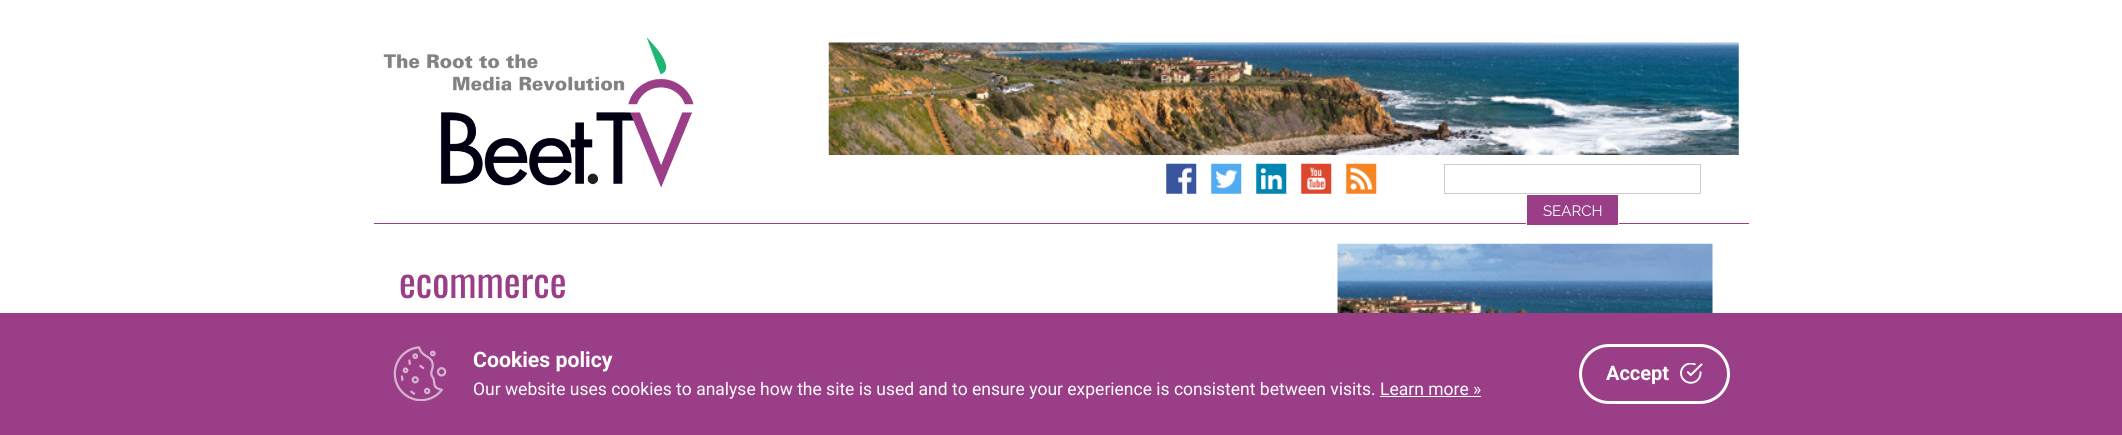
#include <cairo/cairo.h>
#include <math.h>
#include <stddef.h>

static cairo_t *cr;

static void use_color(int r, int g, int b) {
  cairo_set_source_rgb(cr, r / 255.0, g / 255.0, b / 255.0);
}

static void text(double x, double y, const char *s, const char *family, double size, int italic, int bold, int r, int g, int b) {
  cairo_select_font_face(cr, family, italic ? CAIRO_FONT_SLANT_ITALIC : CAIRO_FONT_SLANT_NORMAL,
    bold ? CAIRO_FONT_WEIGHT_BOLD : CAIRO_FONT_WEIGHT_NORMAL);
  cairo_set_font_size(cr, size);
  use_color(r, g, b);
  cairo_move_to(cr, x, y);
  cairo_show_text(cr, s);
}

static void box(double x, double y, double w, double h, int r, int g, int b) {
  use_color(r, g, b);
  cairo_rectangle(cr, x, y, w, h);
  cairo_fill(cr);
}

static void round_rect(double x, double y, double w, double h, double r) {
  cairo_new_sub_path(cr);
  cairo_arc(cr, x + w - r, y + h - r, r, 0, M_PI / 2);
  cairo_arc(cr, x + r, y + h - r, r, M_PI / 2, M_PI);
  cairo_arc(cr, x + r, y + r, r, M_PI, 1.5 * M_PI);
  cairo_arc(cr, x + w - r, y + r, r, 1.5 * M_PI, 2 * M_PI);
  cairo_close_path(cr);
}

static void picture(const char *path, double x, double y, double w, double h) {
  cairo_surface_t *image = cairo_image_surface_create_from_png(path);
  cairo_save(cr);
  cairo_set_source_surface(cr, image, x, y);
  cairo_rectangle(cr, x, y, w, h);
  cairo_fill(cr);
  cairo_restore(cr);
  cairo_surface_destroy(image);
}

static void draw(void) {
  use_color(255, 255, 255);
  cairo_paint(cr);
  box(374, 223, 1375, 1, 154, 62, 135);
  picture("img_01.png", 383, 37, 311, 151);
  picture("img_02.png", 828, 42, 911, 113);
  picture("img_03.png", 1166, 163, 31, 31);
  picture("img_04.png", 1211, 163, 31, 31);
  picture("img_05.png", 1256, 163, 31, 31);
  picture("img_06.png", 1301, 163, 31, 31);
  picture("img_07.png", 1346, 163, 31, 31);
  cairo_rectangle(cr, 1444.5, 164.5, 256, 29);
  use_color(204, 204, 204);
  cairo_set_line_width(cr, 1);
  cairo_stroke(cr);
  use_color(154, 62, 135);
  cairo_rectangle(cr, 1526.5, 194.5, 92, 31);
  cairo_fill_preserve(cr);
  use_color(255, 255, 255);
  cairo_stroke(cr);
  picture("img_08.png", 1337, 243, 376, 70);
  box(0, 313, 2122, 122, 154, 62, 135);
  picture("img_09.png", 393, 346, 54, 55);
  box(1380, 396, 101, 1, 255, 255, 255);
  round_rect(1580.5, 345.5, 148, 57, 28.5);
  cairo_set_line_width(cr, 3);
  cairo_stroke(cr);
  picture("img_10.png", 1680, 363, 23, 21);
  text(1543, 216, "SEARCH", "Raleway", 15, 0, 0, 255, 255, 255);
  text(399, 298, "ecommerce", "Oswald", 40, 0, 0, 154, 62, 135);
  text(473, 367, "Cookies policy", "Roboto", 21.25, 0, 1, 255, 255, 255);
  text(473, 395, "Our website uses cookies to analyse how the site is used and to ensure your experience is consistent between visits. Learn more »", "Roboto", 17.5, 0, 0, 255, 255, 255);
  text(1606, 380, "Accept", "Roboto", 20, 0, 1, 255, 255, 255);
}

int main(void) {
  cairo_surface_t *surface = cairo_image_surface_create(CAIRO_FORMAT_RGB24, 2122, 435);
  cr = cairo_create(surface);
  cairo_font_options_t *options = cairo_font_options_create();
  cairo_font_options_set_hint_metrics(options, CAIRO_HINT_METRICS_OFF);
  cairo_font_options_set_hint_style(options, CAIRO_HINT_STYLE_NONE);
  cairo_set_font_options(cr, options);
  cairo_set_miter_limit(cr, 4);
  draw();
  cairo_surface_write_to_png(surface, "out.png");
  cairo_font_options_destroy(options);
  cairo_destroy(cr);
  cairo_surface_destroy(surface);
  return 0;
}
